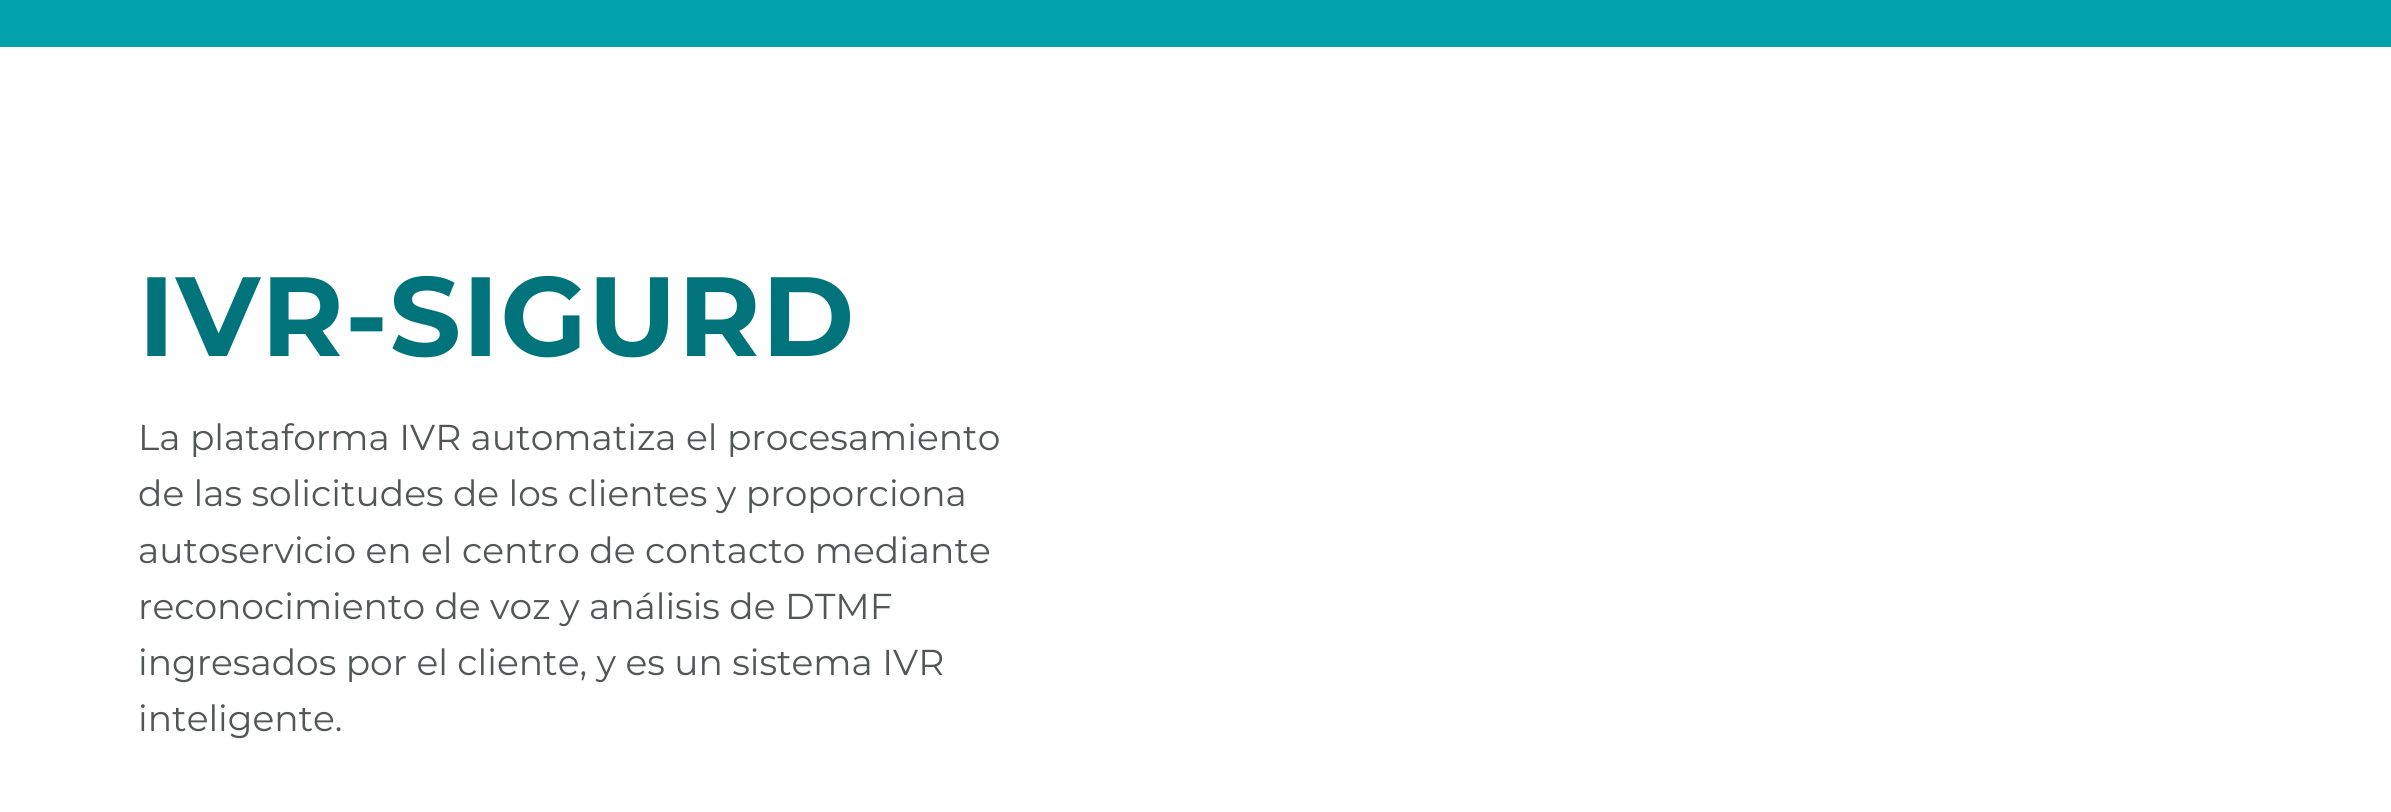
#include <cairo/cairo.h>
#include <math.h>
#include <stddef.h>

static cairo_t *cr;

static void use_color(int r, int g, int b) {
  cairo_set_source_rgb(cr, r / 255.0, g / 255.0, b / 255.0);
}

static void text(double x, double y, const char *s, const char *family, double size, int italic, int bold, int r, int g, int b) {
  cairo_select_font_face(cr, family, italic ? CAIRO_FONT_SLANT_ITALIC : CAIRO_FONT_SLANT_NORMAL,
    bold ? CAIRO_FONT_WEIGHT_BOLD : CAIRO_FONT_WEIGHT_NORMAL);
  cairo_set_font_size(cr, size);
  use_color(r, g, b);
  cairo_move_to(cr, x, y);
  cairo_show_text(cr, s);
}

static void spaced_text(double x, double y, const char *s, double letter, double word) {
  cairo_move_to(cr, x, y);
  while (*s) {
    char ch[5] = {0};
    int n = 0;
    do ch[n++] = *s++; while ((*s & 0xC0) == 0x80);
    cairo_show_text(cr, ch);
    cairo_rel_move_to(cr, letter + word * (*ch == ' '), 0);
  }
}

static void box(double x, double y, double w, double h, int r, int g, int b) {
  use_color(r, g, b);
  cairo_rectangle(cr, x, y, w, h);
  cairo_fill(cr);
}

static void draw(void) {
  use_color(255, 255, 255);
  cairo_paint(cr);
  box(0, 0, 2391, 47, 0, 161, 170);
  cairo_select_font_face(cr, "Montserrat", CAIRO_FONT_SLANT_NORMAL, CAIRO_FONT_WEIGHT_BOLD);
  cairo_set_font_size(cr, 112.5);
  use_color(0, 116, 122);
  spaced_text(138, 356, "IVR-SIGURD", 1.1, 0);
  text(138, 450, "La plataforma IVR automatiza el procesamiento", "Montserrat", 36, 0, 0, 82, 86, 87);
  text(138, 506, "de las solicitudes de los clientes y proporciona", "Montserrat", 36, 0, 0, 82, 86, 87);
  text(138, 563, "autoservicio en el centro de contacto mediante", "Montserrat", 36, 0, 0, 82, 86, 87);
  text(138, 619, "reconocimiento de voz y análisis de DTMF", "Montserrat", 36, 0, 0, 82, 86, 87);
  text(138, 675, "ingresados por el cliente, y es un sistema IVR", "Montserrat", 36, 0, 0, 82, 86, 87);
  text(138, 731, "inteligente.", "Montserrat", 36, 0, 0, 82, 86, 87);
}

int main(void) {
  cairo_surface_t *surface = cairo_image_surface_create(CAIRO_FORMAT_RGB24, 2391, 812);
  cr = cairo_create(surface);
  cairo_font_options_t *options = cairo_font_options_create();
  cairo_font_options_set_hint_metrics(options, CAIRO_HINT_METRICS_OFF);
  cairo_font_options_set_hint_style(options, CAIRO_HINT_STYLE_NONE);
  cairo_set_font_options(cr, options);
  cairo_set_miter_limit(cr, 4);
  draw();
  cairo_surface_write_to_png(surface, "out.png");
  cairo_font_options_destroy(options);
  cairo_destroy(cr);
  cairo_surface_destroy(surface);
  return 0;
}
